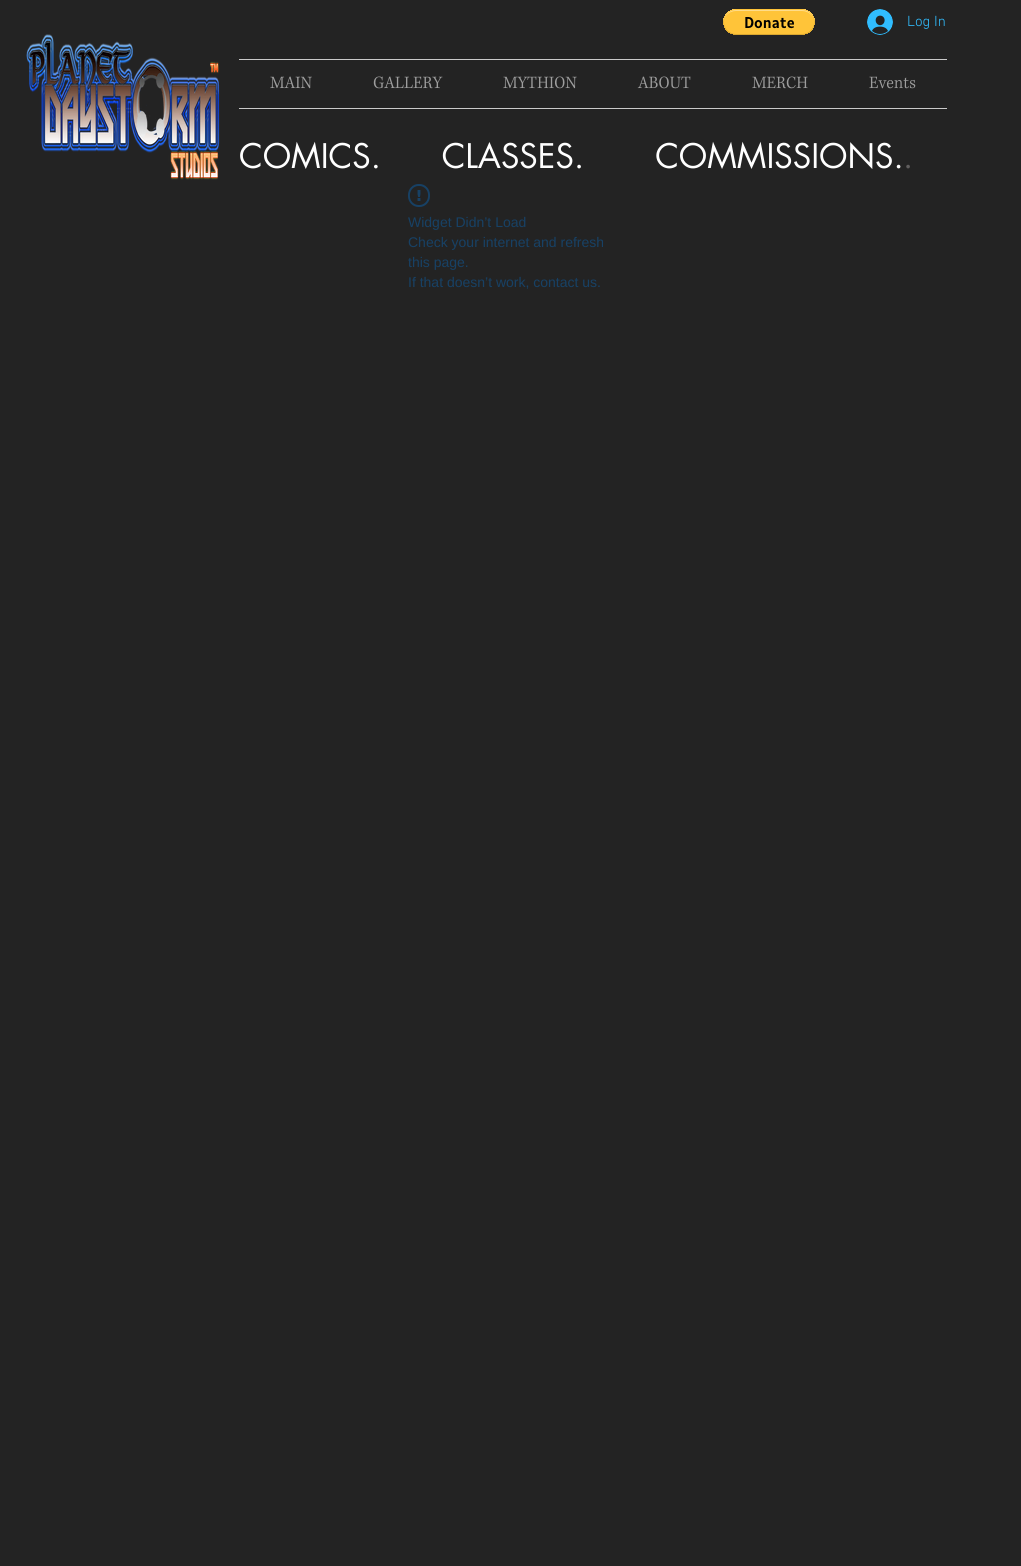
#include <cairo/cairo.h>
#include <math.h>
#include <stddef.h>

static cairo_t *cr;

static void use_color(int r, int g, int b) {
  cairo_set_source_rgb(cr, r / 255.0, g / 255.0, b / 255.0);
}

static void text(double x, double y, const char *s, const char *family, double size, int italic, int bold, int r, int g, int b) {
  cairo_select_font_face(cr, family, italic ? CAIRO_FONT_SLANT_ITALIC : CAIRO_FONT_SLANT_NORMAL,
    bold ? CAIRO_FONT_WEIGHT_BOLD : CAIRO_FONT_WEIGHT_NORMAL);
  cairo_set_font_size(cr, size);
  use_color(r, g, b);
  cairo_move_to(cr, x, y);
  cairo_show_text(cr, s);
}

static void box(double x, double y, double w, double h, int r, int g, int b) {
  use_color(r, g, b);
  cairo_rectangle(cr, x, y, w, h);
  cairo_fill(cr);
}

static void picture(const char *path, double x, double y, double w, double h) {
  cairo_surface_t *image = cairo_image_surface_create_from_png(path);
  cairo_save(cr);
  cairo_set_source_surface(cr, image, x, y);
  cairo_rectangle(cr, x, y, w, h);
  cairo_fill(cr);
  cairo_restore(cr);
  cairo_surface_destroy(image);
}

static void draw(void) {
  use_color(35, 35, 35);
  cairo_paint(cr);
  picture("img_01.png", 723, 9, 92, 26);
  picture("img_02.png", 867, 9, 26, 26);
  picture("img_03.png", 26, 34, 194, 146);
  box(239, 59, 708, 1, 202, 202, 202);
  box(239, 108, 708, 1, 202, 202, 202);
  picture("img_04.png", 270, 76, 42, 13);
  picture("img_05.png", 373, 76, 70, 13);
  picture("img_06.png", 503, 76, 74, 13);
  picture("img_07.png", 637, 76, 54, 13);
  picture("img_08.png", 752, 76, 56, 13);
  picture("img_09.png", 869, 76, 47, 13);
  picture("img_10.png", 408, 184, 22, 23);
  text(907, 26, "Log In", "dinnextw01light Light", 15, 0, 0, 48, 189, 255);
  text(239, 168, "COMICS.      CLASSES.       COMMISSIONS.", "futura", 33, 0, 0, 255, 255, 255);
  text(903, 168, ".", "futura", 33, 0, 0, 96, 94, 94);
  text(408, 227, "Widget Didn’t Load", "Liberation Sans", 14, 0, 0, 23, 65, 101);
  text(408, 247, "Check your internet and refresh", "Liberation Sans", 14, 0, 0, 23, 65, 101);
  text(408, 267, "this page.", "Liberation Sans", 14, 0, 0, 23, 65, 101);
  text(408, 287, "If that doesn’t work, contact us.", "Liberation Sans", 14, 0, 0, 23, 65, 101);
}

int main(void) {
  cairo_surface_t *surface = cairo_image_surface_create(CAIRO_FORMAT_RGB24, 1021, 1566);
  cr = cairo_create(surface);
  cairo_font_options_t *options = cairo_font_options_create();
  cairo_font_options_set_hint_metrics(options, CAIRO_HINT_METRICS_OFF);
  cairo_font_options_set_hint_style(options, CAIRO_HINT_STYLE_NONE);
  cairo_set_font_options(cr, options);
  cairo_set_miter_limit(cr, 4);
  draw();
  cairo_surface_write_to_png(surface, "out.png");
  cairo_font_options_destroy(options);
  cairo_destroy(cr);
  cairo_surface_destroy(surface);
  return 0;
}
